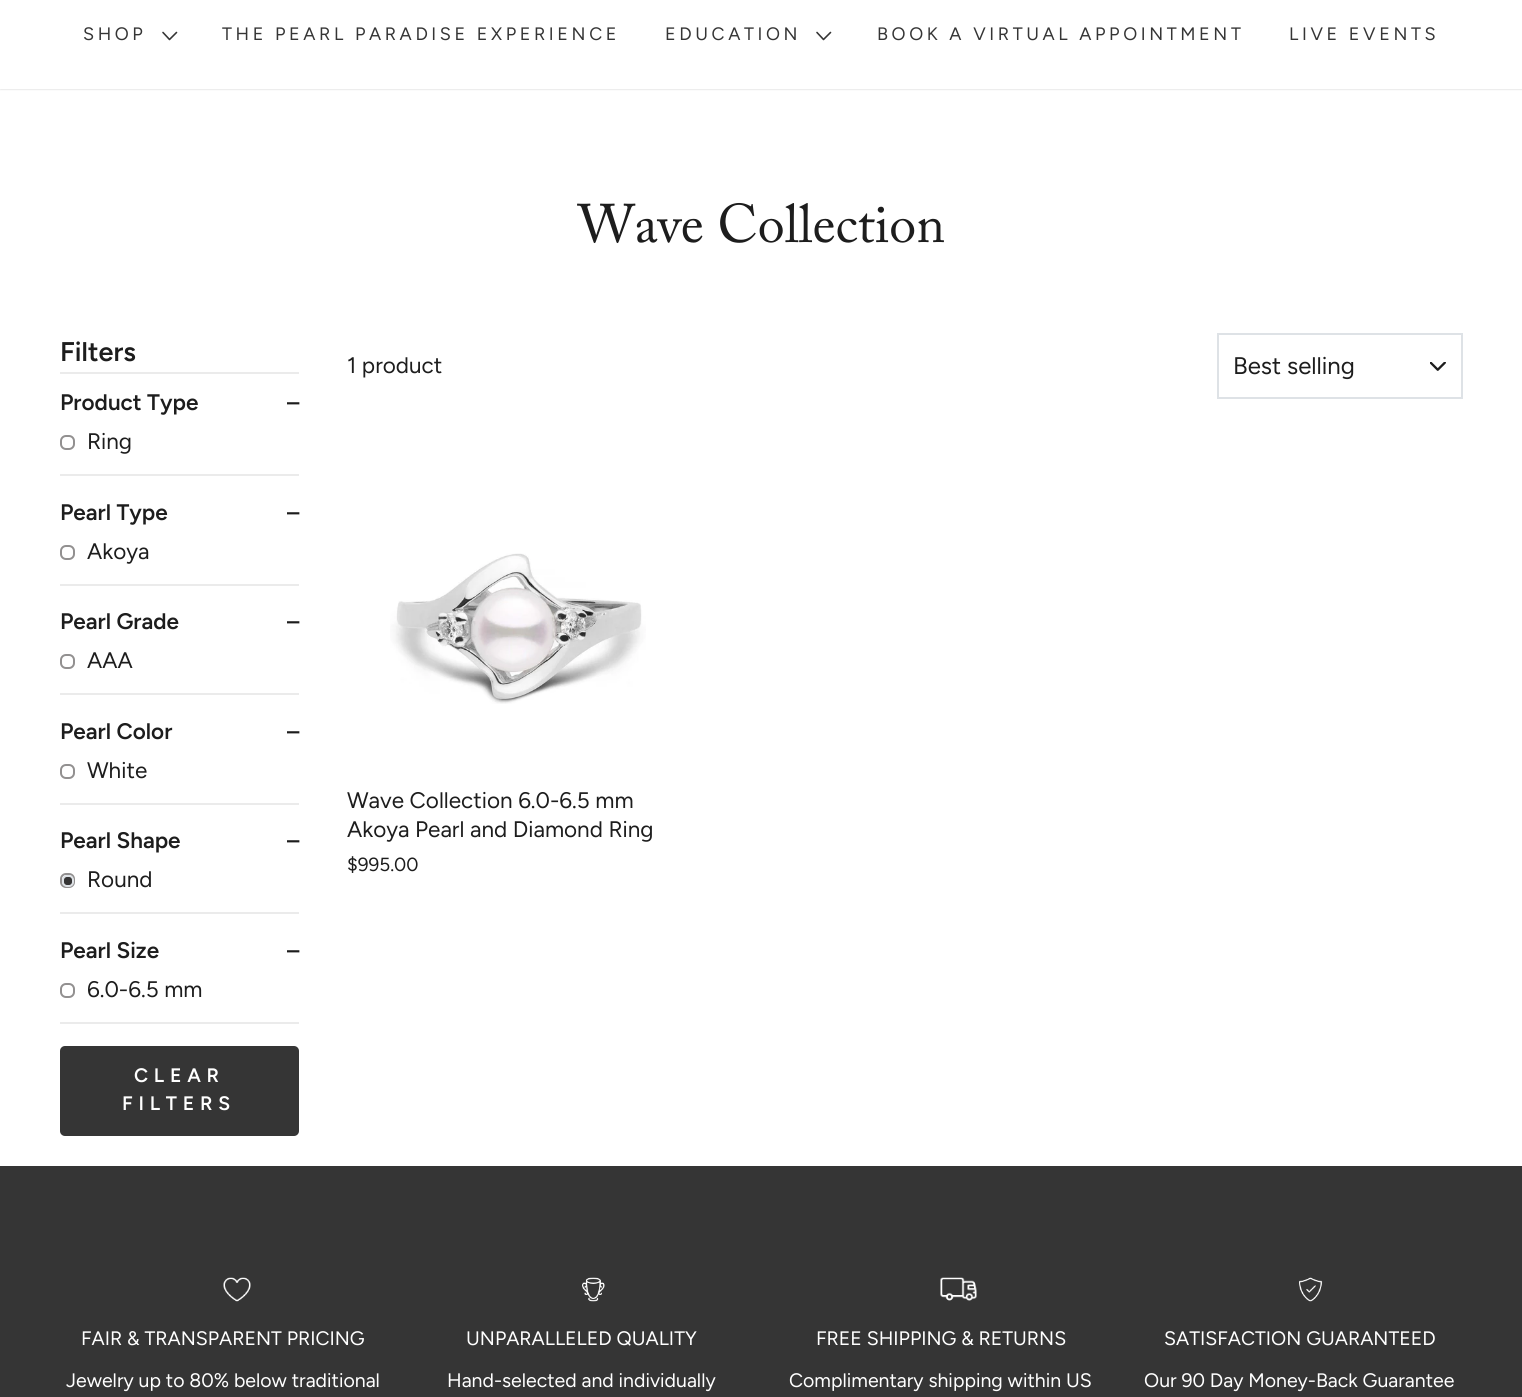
#include <cairo/cairo.h>
#include <math.h>
#include <stddef.h>

static cairo_t *cr;

static void use_color(int r, int g, int b) {
  cairo_set_source_rgb(cr, r / 255.0, g / 255.0, b / 255.0);
}

static void text(double x, double y, const char *s, const char *family, double size, int italic, int bold, int r, int g, int b) {
  cairo_select_font_face(cr, family, italic ? CAIRO_FONT_SLANT_ITALIC : CAIRO_FONT_SLANT_NORMAL,
    bold ? CAIRO_FONT_WEIGHT_BOLD : CAIRO_FONT_WEIGHT_NORMAL);
  cairo_set_font_size(cr, size);
  use_color(r, g, b);
  cairo_move_to(cr, x, y);
  cairo_show_text(cr, s);
}

static void spaced_text(double x, double y, const char *s, double letter, double word) {
  cairo_move_to(cr, x, y);
  while (*s) {
    char ch[5] = {0};
    int n = 0;
    do ch[n++] = *s++; while ((*s & 0xC0) == 0x80);
    cairo_show_text(cr, ch);
    cairo_rel_move_to(cr, letter + word * (*ch == ' '), 0);
  }
}

static void box(double x, double y, double w, double h, int r, int g, int b) {
  use_color(r, g, b);
  cairo_rectangle(cr, x, y, w, h);
  cairo_fill(cr);
}

static void round_rect(double x, double y, double w, double h, double r) {
  cairo_new_sub_path(cr);
  cairo_arc(cr, x + w - r, y + h - r, r, 0, M_PI / 2);
  cairo_arc(cr, x + r, y + h - r, r, M_PI / 2, M_PI);
  cairo_arc(cr, x + r, y + r, r, M_PI, 1.5 * M_PI);
  cairo_arc(cr, x + w - r, y + r, r, 1.5 * M_PI, 2 * M_PI);
  cairo_close_path(cr);
}

static void shadow(double x, double y, double w, double h, double r, double blur, double alpha) {
  cairo_push_group_with_content(cr, CAIRO_CONTENT_ALPHA);
  cairo_set_operator(cr, CAIRO_OPERATOR_SOURCE);
  for (int i = 15; i >= -15 && fmin(w, h) + blur * i / 3 > 0; i -= 2) {
    double e = blur * i / 6;
    cairo_set_source_rgba(cr, 0, 0, 0, alpha * erfc((i - 1) / 8.5) / 2);
    round_rect(x - e, y - e, w + 2 * e, h + 2 * e, fmax(0, fmin(r + e + blur * .6, fmin(w, h) / 2 + e)));
    cairo_fill(cr);
  }
  cairo_pattern_t *soft = cairo_pop_group(cr);
  cairo_mask(cr, soft);
  cairo_pattern_destroy(soft);
}

static void picture(const char *path, double x, double y, double w, double h) {
  cairo_surface_t *image = cairo_image_surface_create_from_png(path);
  cairo_save(cr);
  cairo_set_source_surface(cr, image, x, y);
  cairo_rectangle(cr, x, y, w, h);
  cairo_fill(cr);
  cairo_restore(cr);
  cairo_surface_destroy(image);
}

static void draw(void) {
  use_color(255, 255, 255);
  cairo_paint(cr);
  use_color(0, 0, 0);
  shadow(0, -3, 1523, 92, 0, 1, 0.2);
  box(0, 0, 1522, 89, 255, 255, 255);
  cairo_new_path(cr);
  cairo_move_to(cr, 163, 32.5);
  cairo_line_to(cr, 169.5, 39.5);
  cairo_line_to(cr, 176.5, 32.5);
  use_color(53, 53, 53);
  cairo_set_line_width(cr, 1.6);
  cairo_set_line_cap(cr, CAIRO_LINE_CAP_ROUND);
  cairo_set_line_join(cr, CAIRO_LINE_JOIN_ROUND);
  cairo_stroke(cr);
  cairo_new_path(cr);
  cairo_move_to(cr, 817, 32.5);
  cairo_line_to(cr, 823.5, 39.5);
  cairo_line_to(cr, 830.5, 32.5);
  cairo_stroke(cr);
  box(60, 372, 239, 2, 235, 235, 235);
  box(60, 474, 239, 2, 235, 235, 235);
  round_rect(61, 436, 13, 13, 5);
  use_color(146, 144, 144);
  cairo_set_line_width(cr, 2);
  cairo_set_line_cap(cr, CAIRO_LINE_CAP_BUTT);
  cairo_set_line_join(cr, CAIRO_LINE_JOIN_MITER);
  cairo_stroke(cr);
  box(60, 584, 239, 2, 235, 235, 235);
  round_rect(61, 546, 13, 13, 5);
  use_color(146, 144, 144);
  cairo_stroke(cr);
  box(60, 693, 239, 2, 235, 235, 235);
  round_rect(61, 655, 13, 13, 5);
  use_color(146, 144, 144);
  cairo_stroke(cr);
  box(60, 803, 239, 2, 235, 235, 235);
  round_rect(61, 765, 13, 13, 5);
  use_color(146, 144, 144);
  cairo_stroke(cr);
  box(60, 912, 239, 2, 235, 235, 235);
  round_rect(61, 874, 13, 13, 5);
  use_color(146, 144, 144);
  cairo_stroke(cr);
  use_color(53, 53, 53);
  round_rect(63, 876, 10, 10, 4);
  cairo_fill_preserve(cr);
  use_color(222, 226, 230);
  cairo_stroke(cr);
  box(60, 1022, 239, 2, 235, 235, 235);
  round_rect(61, 984, 13, 13, 5);
  use_color(146, 144, 144);
  cairo_stroke(cr);
  use_color(53, 53, 53);
  round_rect(60, 1046, 239, 90, 5);
  cairo_fill(cr);
  picture("img_01.png", 1430, 362, 16, 9);
  cairo_rectangle(cr, 1218, 334, 244, 64);
  use_color(222, 226, 230);
  cairo_stroke(cr);
  picture("img_02.png", 390, 553, 256, 151);
  box(0, 1166, 1522, 231, 53, 53, 53);
  picture("img_03.png", 223, 1277, 28, 25);
  picture("img_04.png", 582, 1277, 23, 25);
  picture("img_05.png", 940, 1277, 37, 24);
  picture("img_06.png", 1299, 1277, 24, 25);
  cairo_select_font_face(cr, "Figtree", CAIRO_FONT_SLANT_NORMAL, CAIRO_FONT_WEIGHT_NORMAL);
  cairo_set_font_size(cr, 18);
  spaced_text(83, 40, "SHOP", 3.6, 0);
  spaced_text(222, 40, "THE PEARL PARADISE EXPERIENCE", 3.6, 0);
  spaced_text(665, 40, "EDUCATION", 3.6, 0);
  spaced_text(877, 40, "BOOK A VIRTUAL APPOINTMENT", 3.6, 0);
  spaced_text(1289, 40, "LIVE EVENTS", 3.6, 0);
  text(578, 242, "Wave Collection", "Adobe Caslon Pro", 54, 0, 0, 29, 29, 29);
  text(60, 361, "Filters", "Figtree SemiBold", 27, 0, 0, 29, 29, 29);
  text(60, 410, "Product Type", "Figtree SemiBold", 22.5, 0, 0, 29, 29, 29);
  text(287, 410, "–", "Figtree SemiBold", 22.5, 0, 0, 29, 29, 29);
  text(87, 449, "Ring", "Figtree", 22.5, 0, 0, 29, 29, 29);
  text(60, 520, "Pearl Type", "Figtree SemiBold", 22.5, 0, 0, 29, 29, 29);
  text(287, 520, "–", "Figtree SemiBold", 22.5, 0, 0, 29, 29, 29);
  text(87, 559, "Akoya", "Figtree", 22.5, 0, 0, 29, 29, 29);
  text(60, 629, "Pearl Grade", "Figtree SemiBold", 22.5, 0, 0, 29, 29, 29);
  text(287, 629, "–", "Figtree SemiBold", 22.5, 0, 0, 29, 29, 29);
  text(87, 668, "AAA", "Figtree", 22.5, 0, 0, 29, 29, 29);
  text(60, 739, "Pearl Color", "Figtree SemiBold", 22.5, 0, 0, 29, 29, 29);
  text(287, 739, "–", "Figtree SemiBold", 22.5, 0, 0, 29, 29, 29);
  text(87, 778, "White", "Figtree", 22.5, 0, 0, 29, 29, 29);
  text(60, 848, "Pearl Shape", "Figtree SemiBold", 22.5, 0, 0, 29, 29, 29);
  text(287, 848, "–", "Figtree SemiBold", 22.5, 0, 0, 29, 29, 29);
  text(87, 887, "Round", "Figtree", 22.5, 0, 0, 29, 29, 29);
  text(60, 958, "Pearl Size", "Figtree SemiBold", 22.5, 0, 0, 29, 29, 29);
  text(287, 958, "–", "Figtree SemiBold", 22.5, 0, 0, 29, 29, 29);
  text(87, 997, "6.0-6.5 mm", "Figtree", 22.5, 0, 0, 29, 29, 29);
  cairo_select_font_face(cr, "Figtree SemiBold", CAIRO_FONT_SLANT_NORMAL, CAIRO_FONT_WEIGHT_NORMAL);
  cairo_set_font_size(cr, 19.5);
  use_color(255, 255, 255);
  spaced_text(134, 1082, "CLEAR", 5.75, 0);
  spaced_text(122, 1110, "FILTERS", 5.75, 0);
  text(347, 373, "1 product", "Figtree", 22.5, 0, 0, 29, 29, 29);
  text(1233, 374, "Best selling", "Figtree", 24, 0, 0, 29, 29, 29);
  text(347, 808, "Wave Collection 6.0-6.5 mm", "Figtree", 22.5, 0, 0, 29, 29, 29);
  text(347, 837, "Akoya Pearl and Diamond Ring", "Figtree", 22.5, 0, 0, 29, 29, 29);
  text(347, 871, "$995.00", "Figtree", 19, 0, 0, 29, 29, 29);
  text(81, 1345, "FAIR & TRANSPARENT PRICING", "Figtree", 19.5, 0, 0, 255, 255, 255);
  text(66, 1387, "Jewelry up to 80% below traditional", "Figtree", 19.5, 0, 0, 255, 255, 255);
  text(466, 1345, "UNPARALLELED QUALITY", "Figtree", 19.5, 0, 0, 255, 255, 255);
  text(447, 1387, "Hand-selected and individually", "Figtree", 19.5, 0, 0, 255, 255, 255);
  text(816, 1345, "FREE SHIPPING & RETURNS", "Figtree", 19.5, 0, 0, 255, 255, 255);
  text(789, 1387, "Complimentary shipping within US", "Figtree", 19.5, 0, 0, 255, 255, 255);
  text(1164, 1345, "SATISFACTION GUARANTEED", "Figtree", 19.5, 0, 0, 255, 255, 255);
  text(1144, 1387, "Our 90 Day Money-Back Guarantee", "Figtree", 19.5, 0, 0, 255, 255, 255);
}

int main(void) {
  cairo_surface_t *surface = cairo_image_surface_create(CAIRO_FORMAT_RGB24, 1522, 1397);
  cr = cairo_create(surface);
  cairo_font_options_t *options = cairo_font_options_create();
  cairo_font_options_set_hint_metrics(options, CAIRO_HINT_METRICS_OFF);
  cairo_font_options_set_hint_style(options, CAIRO_HINT_STYLE_NONE);
  cairo_set_font_options(cr, options);
  cairo_set_miter_limit(cr, 4);
  draw();
  cairo_surface_write_to_png(surface, "out.png");
  cairo_font_options_destroy(options);
  cairo_destroy(cr);
  cairo_surface_destroy(surface);
  return 0;
}
